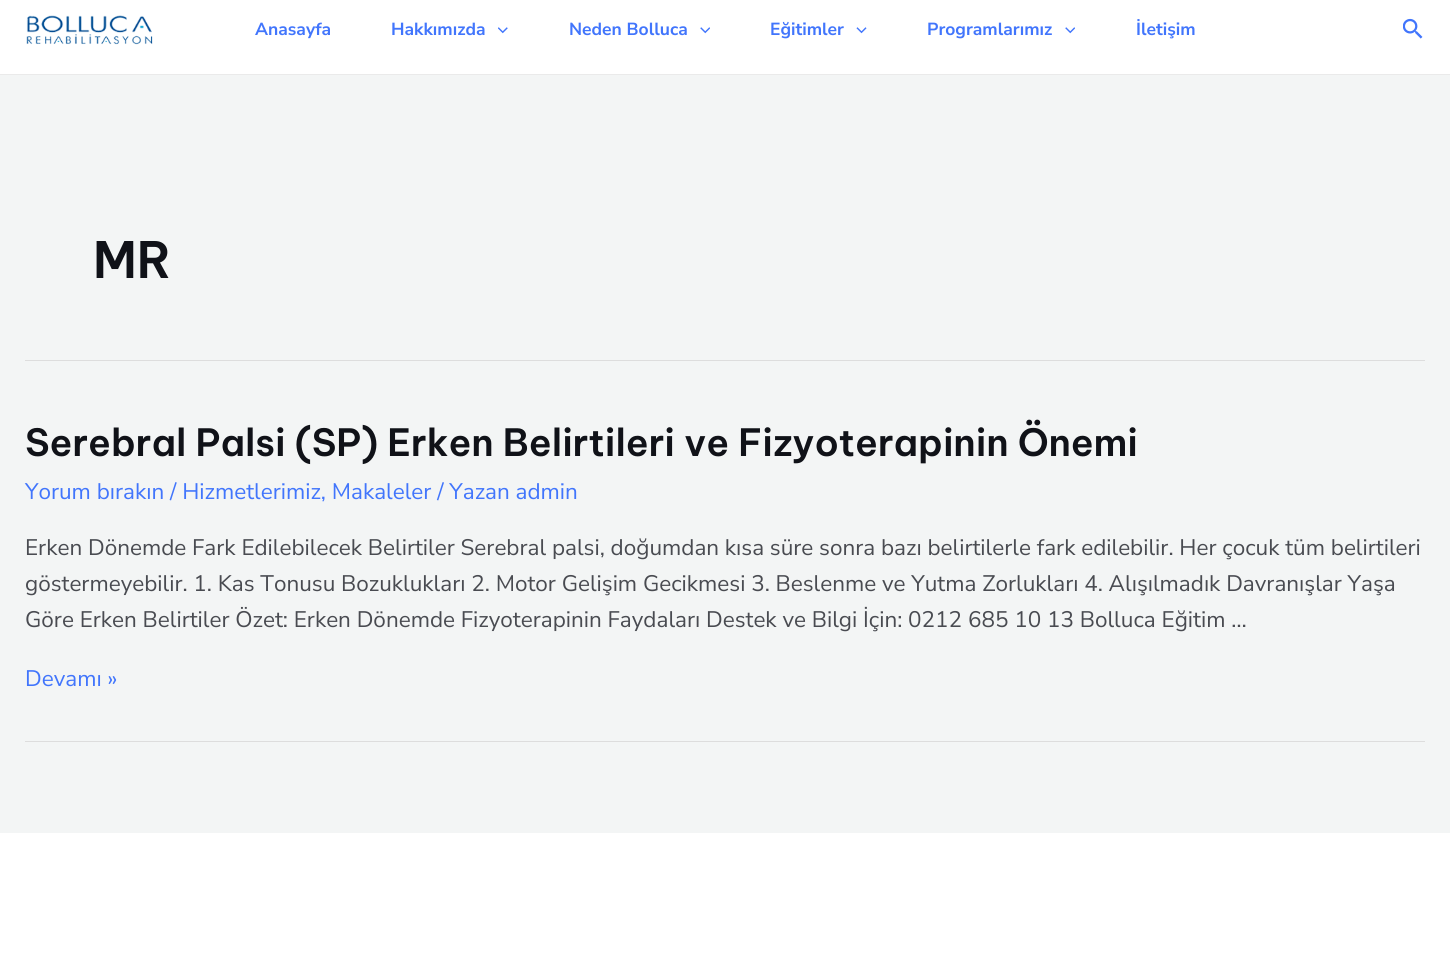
#include <cairo/cairo.h>
#include <math.h>
#include <stddef.h>

static cairo_t *cr;

static void use_color(int r, int g, int b) {
  cairo_set_source_rgb(cr, r / 255.0, g / 255.0, b / 255.0);
}

static void text(double x, double y, const char *s, const char *family, double size, int italic, int bold, int r, int g, int b) {
  cairo_select_font_face(cr, family, italic ? CAIRO_FONT_SLANT_ITALIC : CAIRO_FONT_SLANT_NORMAL,
    bold ? CAIRO_FONT_WEIGHT_BOLD : CAIRO_FONT_WEIGHT_NORMAL);
  cairo_set_font_size(cr, size);
  use_color(r, g, b);
  cairo_move_to(cr, x, y);
  cairo_show_text(cr, s);
}

static void spaced_text(double x, double y, const char *s, double letter, double word) {
  cairo_move_to(cr, x, y);
  while (*s) {
    char ch[5] = {0};
    int n = 0;
    do ch[n++] = *s++; while ((*s & 0xC0) == 0x80);
    cairo_show_text(cr, ch);
    cairo_rel_move_to(cr, letter + word * (*ch == ' '), 0);
  }
}

static void box(double x, double y, double w, double h, int r, int g, int b) {
  use_color(r, g, b);
  cairo_rectangle(cr, x, y, w, h);
  cairo_fill(cr);
}

static void picture(const char *path, double x, double y, double w, double h) {
  cairo_surface_t *image = cairo_image_surface_create_from_png(path);
  cairo_save(cr);
  cairo_set_source_surface(cr, image, x, y);
  cairo_rectangle(cr, x, y, w, h);
  cairo_fill(cr);
  cairo_restore(cr);
  cairo_surface_destroy(image);
}

static void draw(void) {
  use_color(243, 245, 245);
  cairo_paint(cr);
  box(0, 0, 1450, 74, 255, 255, 255);
  box(0, 74, 1450, 1, 234, 234, 234);
  picture("img_01.png", 26, 15, 127, 30);
  picture("img_02.png", 498, 27, 10, 7);
  picture("img_03.png", 700, 27, 10, 7);
  picture("img_04.png", 856, 27, 11, 7);
  picture("img_03.png", 1065, 27, 10, 7);
  picture("img_05.png", 1403, 18, 20, 21);
  box(25, 360, 1400, 1, 221, 221, 221);
  box(25, 741, 1400, 1, 221, 221, 221);
  box(0, 833, 1450, 134, 255, 255, 255);
  text(255, 35, "Anasayfa", "Nunito Sans", 17.5, 0, 1, 65, 117, 252);
  text(391, 35, "Hakkımızda", "Nunito Sans", 17.5, 0, 1, 65, 117, 252);
  text(569, 35, "Neden Bolluca", "Nunito Sans", 17.5, 0, 1, 65, 117, 252);
  text(770, 35, "Eğitimler", "Nunito Sans", 17.5, 0, 1, 65, 117, 252);
  text(927, 35, "Programlarımız", "Nunito Sans", 17.5, 0, 1, 65, 117, 252);
  text(1136, 35, "İletişim", "Nunito Sans", 17.5, 0, 1, 65, 117, 252);
  text(93, 278, "MR", "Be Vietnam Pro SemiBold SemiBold", 50, 0, 0, 16, 18, 24);
  cairo_set_font_size(cr, 37.5);
  spaced_text(25, 456, "Serebral Palsi (SP) Erken Belirtileri ve Fizyoterapinin Önemi", 0, 0.5);
  text(25, 499, "Yorum bırakın / Hizmetlerimiz, Makaleler / Yazan admin", "Nunito Sans", 22.5, 0, 0, 65, 117, 252);
  text(25, 555, "Erken Dönemde Fark Edilebilecek Belirtiler Serebral palsi, doğumdan kısa süre sonra bazı belirtilerle fark edilebilir. Her çocuk tüm belirtileri", "Nunito Sans", 22.5, 0, 0, 73, 75, 81);
  text(25, 591, "göstermeyebilir. 1. Kas Tonusu Bozuklukları 2. Motor Gelişim Gecikmesi 3. Beslenme ve Yutma Zorlukları 4. Alışılmadık Davranışlar Yaşa", "Nunito Sans", 22.5, 0, 0, 73, 75, 81);
  text(25, 627, "Göre Erken Belirtiler Özet: Erken Dönemde Fizyoterapinin Faydaları Destek ve Bilgi İçin: 0212 685 10 13 Bolluca Eğitim …", "Nunito Sans", 22.5, 0, 0, 73, 75, 81);
  text(25, 686, "Devamı »", "Nunito Sans", 22.5, 0, 0, 65, 117, 252);
}

int main(void) {
  cairo_surface_t *surface = cairo_image_surface_create(CAIRO_FORMAT_RGB24, 1450, 967);
  cr = cairo_create(surface);
  cairo_font_options_t *options = cairo_font_options_create();
  cairo_font_options_set_hint_metrics(options, CAIRO_HINT_METRICS_OFF);
  cairo_font_options_set_hint_style(options, CAIRO_HINT_STYLE_NONE);
  cairo_set_font_options(cr, options);
  cairo_set_miter_limit(cr, 4);
  draw();
  cairo_surface_write_to_png(surface, "out.png");
  cairo_font_options_destroy(options);
  cairo_destroy(cr);
  cairo_surface_destroy(surface);
  return 0;
}
